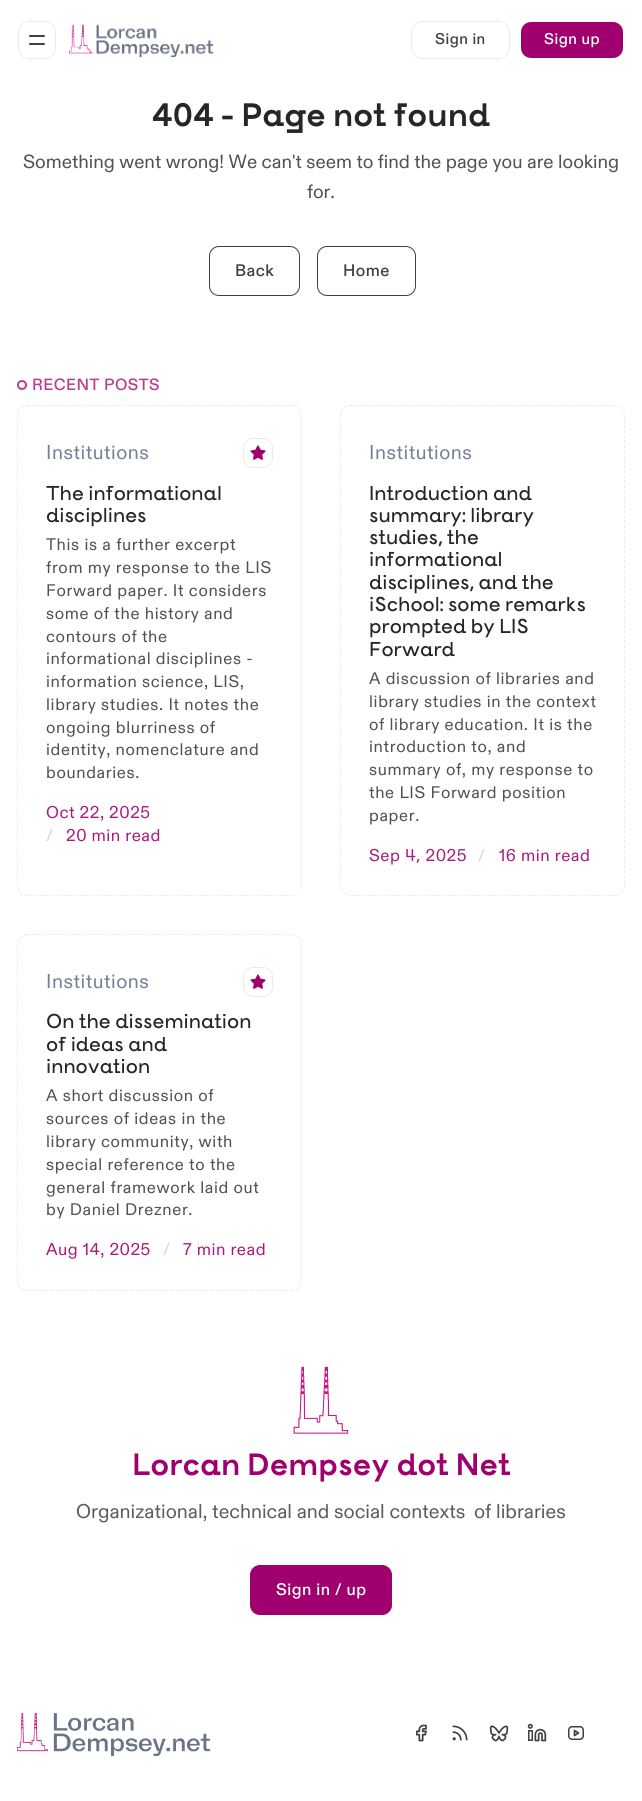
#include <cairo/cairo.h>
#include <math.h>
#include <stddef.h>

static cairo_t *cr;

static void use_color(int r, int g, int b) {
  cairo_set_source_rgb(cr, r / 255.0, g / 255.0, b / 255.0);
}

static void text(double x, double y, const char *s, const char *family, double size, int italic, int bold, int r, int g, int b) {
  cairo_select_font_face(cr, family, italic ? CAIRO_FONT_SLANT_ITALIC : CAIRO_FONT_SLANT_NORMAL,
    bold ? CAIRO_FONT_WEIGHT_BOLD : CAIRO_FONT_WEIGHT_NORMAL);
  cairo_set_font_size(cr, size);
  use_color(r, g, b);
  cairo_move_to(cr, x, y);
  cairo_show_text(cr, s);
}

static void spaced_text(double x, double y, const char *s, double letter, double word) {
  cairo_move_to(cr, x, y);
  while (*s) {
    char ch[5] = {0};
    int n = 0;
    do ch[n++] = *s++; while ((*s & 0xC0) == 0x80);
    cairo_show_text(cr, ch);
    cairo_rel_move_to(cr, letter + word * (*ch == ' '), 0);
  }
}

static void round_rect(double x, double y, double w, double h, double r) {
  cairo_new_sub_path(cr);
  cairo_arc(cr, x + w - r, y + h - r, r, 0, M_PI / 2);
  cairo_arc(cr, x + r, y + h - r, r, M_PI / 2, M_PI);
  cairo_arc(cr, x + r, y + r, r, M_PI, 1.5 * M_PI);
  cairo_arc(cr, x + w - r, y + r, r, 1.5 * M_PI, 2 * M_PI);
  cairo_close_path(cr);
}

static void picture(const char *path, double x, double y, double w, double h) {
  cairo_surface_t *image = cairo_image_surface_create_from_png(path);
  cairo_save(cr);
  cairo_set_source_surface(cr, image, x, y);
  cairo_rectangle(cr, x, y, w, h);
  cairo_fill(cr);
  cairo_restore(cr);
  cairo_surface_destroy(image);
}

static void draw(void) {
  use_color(255, 255, 255);
  cairo_paint(cr);
  round_rect(18.5, 21.5, 37, 37, 10.5);
  use_color(235, 235, 235);
  cairo_set_line_width(cr, 1);
  cairo_stroke(cr);
  use_color(64, 64, 64);
  round_rect(29, 35, 16, 2, 1);
  cairo_fill(cr);
  round_rect(29, 43, 16, 2, 1);
  cairo_fill(cr);
  picture("img_01.png", 69, 24, 145, 34);
  round_rect(411.5, 21.5, 98, 37, 10.5);
  use_color(235, 235, 235);
  cairo_stroke(cr);
  use_color(160, 0, 110);
  round_rect(521, 22, 102, 36, 10);
  cairo_fill(cr);
  round_rect(209.5, 246.5, 90, 49, 9.5);
  use_color(64, 64, 64);
  cairo_stroke(cr);
  round_rect(317.5, 246.5, 98, 49, 9.5);
  cairo_stroke(cr);
  cairo_arc(cr, 22, 385, 4, 0, 2 * M_PI);
  use_color(184, 64, 146);
  cairo_set_line_width(cr, 2);
  cairo_stroke(cr);
  cairo_new_path(cr);
  cairo_move_to(cr, 27, 405.5);
  cairo_line_to(cr, 292, 405.5);
  cairo_curve_to(cr, 297, 405.5, 301.5, 410, 301.5, 415);
  cairo_line_to(cr, 301.5, 886);
  cairo_curve_to(cr, 301.5, 891, 297, 895.5, 292, 895.5);
  cairo_line_to(cr, 27, 895.5);
  cairo_curve_to(cr, 22, 895.5, 17.5, 891, 17.5, 886);
  cairo_line_to(cr, 17.5, 415);
  cairo_curve_to(cr, 17.5, 410, 22, 405.5, 27, 405.5);
  cairo_close_path(cr);
  use_color(235, 235, 235);
  cairo_set_line_width(cr, 1);
  cairo_set_dash(cr, (double[]){3, 2}, 2, 0);
  cairo_stroke(cr);
  round_rect(243.5, 438.5, 29, 29, 9.5);
  cairo_set_dash(cr, NULL, 0, 0);
  cairo_stroke(cr);
  picture("img_02.png", 250, 445, 16, 15);
  cairo_new_path(cr);
  cairo_move_to(cr, 350, 405.5);
  cairo_line_to(cr, 615, 405.5);
  cairo_curve_to(cr, 620, 405.5, 624.5, 410, 624.5, 415);
  cairo_line_to(cr, 624.5, 886);
  cairo_curve_to(cr, 624.5, 891, 620, 895.5, 615, 895.5);
  cairo_line_to(cr, 350, 895.5);
  cairo_curve_to(cr, 345, 895.5, 340.5, 891, 340.5, 886);
  cairo_line_to(cr, 340.5, 415);
  cairo_curve_to(cr, 340.5, 410, 345, 405.5, 350, 405.5);
  cairo_close_path(cr);
  cairo_set_dash(cr, (double[]){3, 2}, 2, 0);
  cairo_stroke(cr);
  cairo_new_path(cr);
  cairo_move_to(cr, 27, 934.5);
  cairo_line_to(cr, 292, 934.5);
  cairo_curve_to(cr, 297, 934.5, 301.5, 939, 301.5, 944);
  cairo_line_to(cr, 301.5, 1281);
  cairo_curve_to(cr, 301.5, 1286, 297, 1290.5, 292, 1290.5);
  cairo_line_to(cr, 27, 1290.5);
  cairo_curve_to(cr, 22, 1290.5, 17.5, 1286, 17.5, 1281);
  cairo_line_to(cr, 17.5, 944);
  cairo_curve_to(cr, 17.5, 939, 22, 934.5, 27, 934.5);
  cairo_close_path(cr);
  cairo_stroke(cr);
  round_rect(243.5, 967.5, 29, 29, 9.5);
  cairo_set_dash(cr, NULL, 0, 0);
  cairo_stroke(cr);
  picture("img_02.png", 250, 974, 16, 15);
  picture("img_03.png", 293, 1366, 56, 68);
  use_color(160, 0, 110);
  round_rect(250.5, 1565.5, 141, 49, 9.5);
  cairo_fill_preserve(cr);
  cairo_stroke(cr);
  picture("img_04.png", 17, 1712, 194, 45);
  picture("img_05.png", 416, 1724, 11, 18);
  picture("img_06.png", 452, 1725, 16, 16);
  picture("img_07.png", 489, 1725, 20, 17);
  picture("img_08.png", 527, 1723, 20, 19);
  round_rect(568.75, 1726.75, 14.5, 12.5, 3.25);
  use_color(64, 64, 64);
  cairo_set_line_width(cr, 1.5);
  cairo_stroke(cr);
  cairo_new_path(cr);
  cairo_move_to(cr, 574.5, 1730.5);
  cairo_line_to(cr, 578.5, 1733);
  cairo_line_to(cr, 574.5, 1735.5);
  cairo_close_path(cr);
  cairo_set_line_width(cr, 1.7);
  cairo_set_line_cap(cr, CAIRO_LINE_CAP_ROUND);
  cairo_set_line_join(cr, CAIRO_LINE_JOIN_ROUND);
  cairo_stroke(cr);
  cairo_select_font_face(cr, "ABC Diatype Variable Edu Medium", CAIRO_FONT_SLANT_NORMAL, CAIRO_FONT_WEIGHT_NORMAL);
  cairo_set_font_size(cr, 15.5);
  spaced_text(435, 44, "Sign in", 0.5, 0);
  use_color(255, 255, 255);
  spaced_text(544, 44, "Sign up", 0.5, 0);
  text(152, 126, "404 - Page not found", "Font", 31.5, 0, 1, 38, 38, 38);
  text(23, 168, "Something went wrong! We can't seem to find the page you are looking", "ABC Diatype Variable Edu", 19, 0, 0, 81, 81, 81);
  text(307, 198, "for.", "ABC Diatype Variable Edu", 19, 0, 0, 81, 81, 81);
  cairo_select_font_face(cr, "ABC Diatype Variable Edu Medium", CAIRO_FONT_SLANT_NORMAL, CAIRO_FONT_WEIGHT_NORMAL);
  cairo_set_font_size(cr, 16.75);
  use_color(64, 64, 64);
  spaced_text(235, 276, "Back", 0.5, 0);
  spaced_text(343, 276, "Home", 0.5, 0);
  cairo_set_font_size(cr, 16.25);
  use_color(184, 64, 146);
  spaced_text(32, 390, "RECENT POSTS", 0.5, 0);
  cairo_select_font_face(cr, "ABC Diatype Variable Edu", CAIRO_FONT_SLANT_NORMAL, CAIRO_FONT_WEIGHT_NORMAL);
  cairo_set_font_size(cr, 19.85);
  use_color(116, 127, 154);
  spaced_text(46, 459, "Institutions", 0.5, 0);
  text(46, 500, "The informational", "Font Medium", 19.5, 0, 0, 38, 38, 38);
  text(46, 522, "disciplines", "Font Medium", 19.5, 0, 0, 38, 38, 38);
  cairo_select_font_face(cr, "ABC Diatype Variable Edu", CAIRO_FONT_SLANT_NORMAL, CAIRO_FONT_WEIGHT_NORMAL);
  cairo_set_font_size(cr, 16.75);
  use_color(81, 81, 81);
  spaced_text(46, 550, "This is a further excerpt", 0.65, 0);
  spaced_text(46, 573, "from my response to the LIS", 0.65, 0);
  spaced_text(46, 596, "Forward paper. It considers", 0.65, 0);
  spaced_text(46, 619, "some of the history and", 0.65, 0);
  spaced_text(46, 642, "contours of the", 0.65, 0);
  spaced_text(46, 664, "informational disciplines -", 0.65, 0);
  spaced_text(46, 687, "information science, LIS,", 0.65, 0);
  spaced_text(46, 710, "library studies. It notes the", 0.65, 0);
  spaced_text(46, 733, "ongoing blurriness of", 0.65, 0);
  spaced_text(46, 755, "identity, nomenclature and", 0.65, 0);
  spaced_text(46, 778, "boundaries.", 0.65, 0);
  cairo_set_font_size(cr, 17);
  use_color(170, 26, 125);
  spaced_text(46, 818, "Oct 22, 2025", 0.5, 0);
  use_color(234, 198, 222);
  spaced_text(46, 841, "/", 0.5, 0);
  use_color(170, 26, 125);
  spaced_text(66, 841, "20 min read", 0.5, 0);
  cairo_set_font_size(cr, 19.85);
  use_color(116, 127, 154);
  spaced_text(369, 459, "Institutions", 0.5, 0);
  text(369, 500, "Introduction and", "Font Medium", 19.5, 0, 0, 38, 38, 38);
  text(369, 522, "summary: library", "Font Medium", 19.5, 0, 0, 38, 38, 38);
  text(369, 544, "studies, the", "Font Medium", 19.5, 0, 0, 38, 38, 38);
  text(369, 566, "informational", "Font Medium", 19.5, 0, 0, 38, 38, 38);
  text(369, 589, "disciplines, and the", "Font Medium", 19.5, 0, 0, 38, 38, 38);
  text(369, 611, "iSchool: some remarks", "Font Medium", 19.5, 0, 0, 38, 38, 38);
  text(369, 633, "prompted by LIS", "Font Medium", 19.5, 0, 0, 38, 38, 38);
  text(369, 656, "Forward", "Font Medium", 19.5, 0, 0, 38, 38, 38);
  cairo_select_font_face(cr, "ABC Diatype Variable Edu", CAIRO_FONT_SLANT_NORMAL, CAIRO_FONT_WEIGHT_NORMAL);
  cairo_set_font_size(cr, 16.75);
  use_color(81, 81, 81);
  spaced_text(369, 684, "A discussion of libraries and", 0.65, 0);
  spaced_text(369, 707, "library studies in the context", 0.65, 0);
  spaced_text(369, 730, "of library education. It is the", 0.65, 0);
  spaced_text(369, 752, "introduction to, and", 0.65, 0);
  spaced_text(369, 775, "summary of, my response to", 0.65, 0);
  spaced_text(369, 798, "the LIS Forward position", 0.65, 0);
  spaced_text(369, 821, "paper.", 0.65, 0);
  cairo_select_font_face(cr, "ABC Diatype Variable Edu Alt", CAIRO_FONT_SLANT_NORMAL, CAIRO_FONT_WEIGHT_NORMAL);
  cairo_set_font_size(cr, 17);
  use_color(170, 26, 125);
  spaced_text(369, 861, "Sep 4, 2025", 0.5, 0);
  cairo_select_font_face(cr, "ABC Diatype Variable Edu", CAIRO_FONT_SLANT_NORMAL, CAIRO_FONT_WEIGHT_NORMAL);
  use_color(234, 198, 222);
  spaced_text(478, 861, "/", 0.5, 0);
  use_color(170, 26, 125);
  spaced_text(499, 861, "16 min read", 0.5, 0);
  cairo_set_font_size(cr, 19.85);
  use_color(116, 127, 154);
  spaced_text(46, 988, "Institutions", 0.5, 0);
  text(46, 1028, "On the dissemination", "Font Medium", 19.5, 0, 0, 38, 38, 38);
  text(46, 1051, "of ideas and", "Font Medium", 19.5, 0, 0, 38, 38, 38);
  text(46, 1073, "innovation", "Font Medium", 19.5, 0, 0, 38, 38, 38);
  cairo_select_font_face(cr, "ABC Diatype Variable Edu", CAIRO_FONT_SLANT_NORMAL, CAIRO_FONT_WEIGHT_NORMAL);
  cairo_set_font_size(cr, 16.75);
  use_color(81, 81, 81);
  spaced_text(46, 1101, "A short discussion of", 0.65, 0);
  spaced_text(46, 1124, "sources of ideas in the", 0.65, 0);
  spaced_text(46, 1147, "library community, with", 0.65, 0);
  spaced_text(46, 1170, "special reference to the", 0.65, 0);
  spaced_text(46, 1193, "general framework laid out", 0.65, 0);
  spaced_text(46, 1215, "by Daniel Drezner.", 0.65, 0);
  cairo_set_font_size(cr, 17);
  use_color(170, 26, 125);
  spaced_text(46, 1255, "Aug 14, 2025", 0.5, 0);
  use_color(234, 198, 222);
  spaced_text(163, 1255, "/", 0.5, 0);
  use_color(170, 26, 125);
  spaced_text(183, 1255, "7 min read", 0.5, 0);
  text(132, 1475, "Lorcan Dempsey dot Net", "Font", 29.9, 0, 1, 160, 0, 110);
  text(76, 1518, "Organizational, technical and social contexts", "ABC Diatype Variable Edu", 19.85, 0, 0, 92, 92, 92);
  text(474, 1518, "of libraries", "ABC Diatype Variable Edu", 19.85, 0, 0, 92, 92, 92);
  cairo_select_font_face(cr, "ABC Diatype Variable Edu Medium", CAIRO_FONT_SLANT_NORMAL, CAIRO_FONT_WEIGHT_NORMAL);
  cairo_set_font_size(cr, 16.75);
  use_color(255, 255, 255);
  spaced_text(276, 1595, "Sign in / up", 0.5, 0);
}

int main(void) {
  cairo_surface_t *surface = cairo_image_surface_create(CAIRO_FORMAT_RGB24, 642, 1801);
  cr = cairo_create(surface);
  cairo_font_options_t *options = cairo_font_options_create();
  cairo_font_options_set_hint_metrics(options, CAIRO_HINT_METRICS_OFF);
  cairo_font_options_set_hint_style(options, CAIRO_HINT_STYLE_NONE);
  cairo_set_font_options(cr, options);
  cairo_set_miter_limit(cr, 4);
  draw();
  cairo_surface_write_to_png(surface, "out.png");
  cairo_font_options_destroy(options);
  cairo_destroy(cr);
  cairo_surface_destroy(surface);
  return 0;
}
